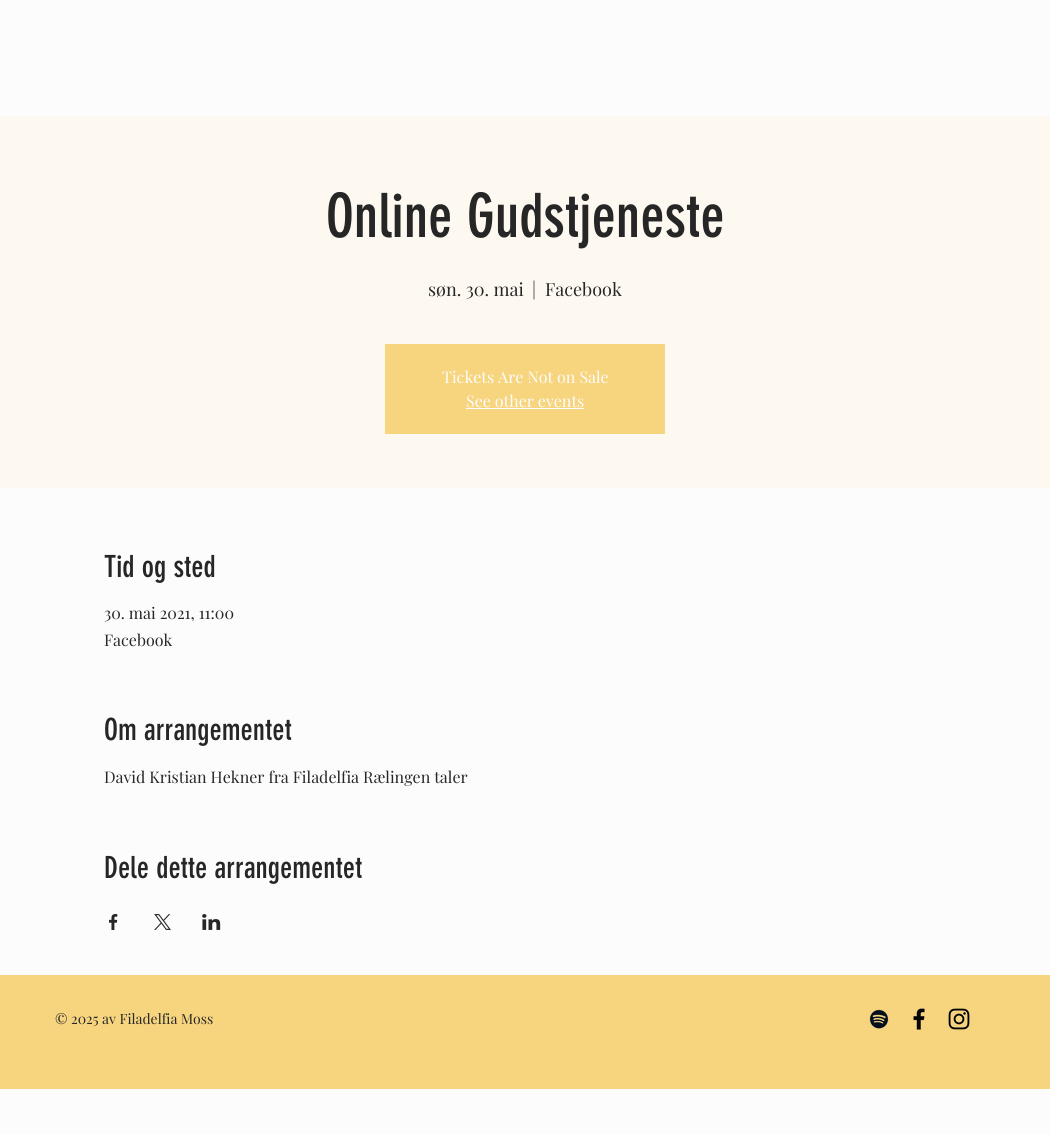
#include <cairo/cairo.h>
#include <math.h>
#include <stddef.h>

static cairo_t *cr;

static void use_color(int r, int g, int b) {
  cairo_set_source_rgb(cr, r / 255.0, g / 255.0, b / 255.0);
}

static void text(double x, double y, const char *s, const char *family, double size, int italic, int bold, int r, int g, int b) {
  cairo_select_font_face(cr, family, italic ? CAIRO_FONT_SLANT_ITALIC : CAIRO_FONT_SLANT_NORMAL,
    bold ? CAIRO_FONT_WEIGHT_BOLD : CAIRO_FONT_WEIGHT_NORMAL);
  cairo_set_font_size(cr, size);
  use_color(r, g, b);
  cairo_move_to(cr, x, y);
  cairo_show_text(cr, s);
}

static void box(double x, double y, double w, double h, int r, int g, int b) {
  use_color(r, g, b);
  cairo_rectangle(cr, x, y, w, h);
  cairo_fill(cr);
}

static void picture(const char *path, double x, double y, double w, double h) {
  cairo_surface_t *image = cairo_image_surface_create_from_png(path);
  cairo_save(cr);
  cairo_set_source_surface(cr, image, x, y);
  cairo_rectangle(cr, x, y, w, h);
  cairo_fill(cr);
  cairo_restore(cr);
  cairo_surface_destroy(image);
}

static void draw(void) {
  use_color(252, 252, 252);
  cairo_paint(cr);
  box(0, 116, 1050, 372, 253, 249, 241);
  box(385, 344, 280, 90, 247, 213, 127);
  box(466, 408, 118, 1, 252, 252, 252);
  picture("img_01.png", 109, 914, 9, 16);
  picture("img_02.png", 154, 914, 17, 16);
  picture("img_03.png", 202, 914, 19, 16);
  box(0, 975, 1050, 114, 247, 213, 127);
  picture("img_04.png", 869, 1009, 20, 20);
  picture("img_05.png", 913, 1008, 12, 22);
  picture("img_06.png", 948, 1008, 22, 22);
  text(326, 237, "Online Gudstjeneste", "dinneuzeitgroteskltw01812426", 60, 0, 0, 38, 38, 38);
  text(428, 296, "søn. 30. mai", "Playfair Display", 18, 0, 0, 38, 38, 38);
  text(532, 296, "|", "Playfair Display", 18, 0, 0, 38, 38, 38);
  text(545, 296, "Facebook", "Playfair Display", 18, 0, 0, 38, 38, 38);
  text(442, 383, "Tickets Are Not on Sale", "Playfair Display", 16, 0, 0, 252, 252, 252);
  text(466, 407, "See other events", "Playfair Display", 16, 0, 0, 252, 252, 252);
  text(104, 577, "Tid og sted", "dinneuzeitgroteskltw01812426", 30, 0, 0, 38, 38, 38);
  text(104, 619, "30. mai 2021, 11:00", "Playfair Display", 16, 0, 0, 38, 38, 38);
  text(104, 646, "Facebook", "Playfair Display", 16, 0, 0, 38, 38, 38);
  text(104, 740, "Om arrangementet", "dinneuzeitgroteskltw01812426", 30, 0, 0, 38, 38, 38);
  text(104, 783, "David Kristian Hekner fra Filadelfia Rælingen taler", "Playfair Display", 16, 0, 0, 38, 38, 38);
  text(104, 878, "Dele dette arrangementet", "dinneuzeitgroteskltw01812426", 30, 0, 0, 38, 38, 38);
  text(55, 1024, "© 2025 av Filadelfia Moss", "Playfair Display", 14, 0, 0, 38, 38, 38);
}

int main(void) {
  cairo_surface_t *surface = cairo_image_surface_create(CAIRO_FORMAT_RGB24, 1050, 1134);
  cr = cairo_create(surface);
  cairo_font_options_t *options = cairo_font_options_create();
  cairo_font_options_set_hint_metrics(options, CAIRO_HINT_METRICS_OFF);
  cairo_font_options_set_hint_style(options, CAIRO_HINT_STYLE_NONE);
  cairo_set_font_options(cr, options);
  cairo_set_miter_limit(cr, 4);
  draw();
  cairo_surface_write_to_png(surface, "out.png");
  cairo_font_options_destroy(options);
  cairo_destroy(cr);
  cairo_surface_destroy(surface);
  return 0;
}
